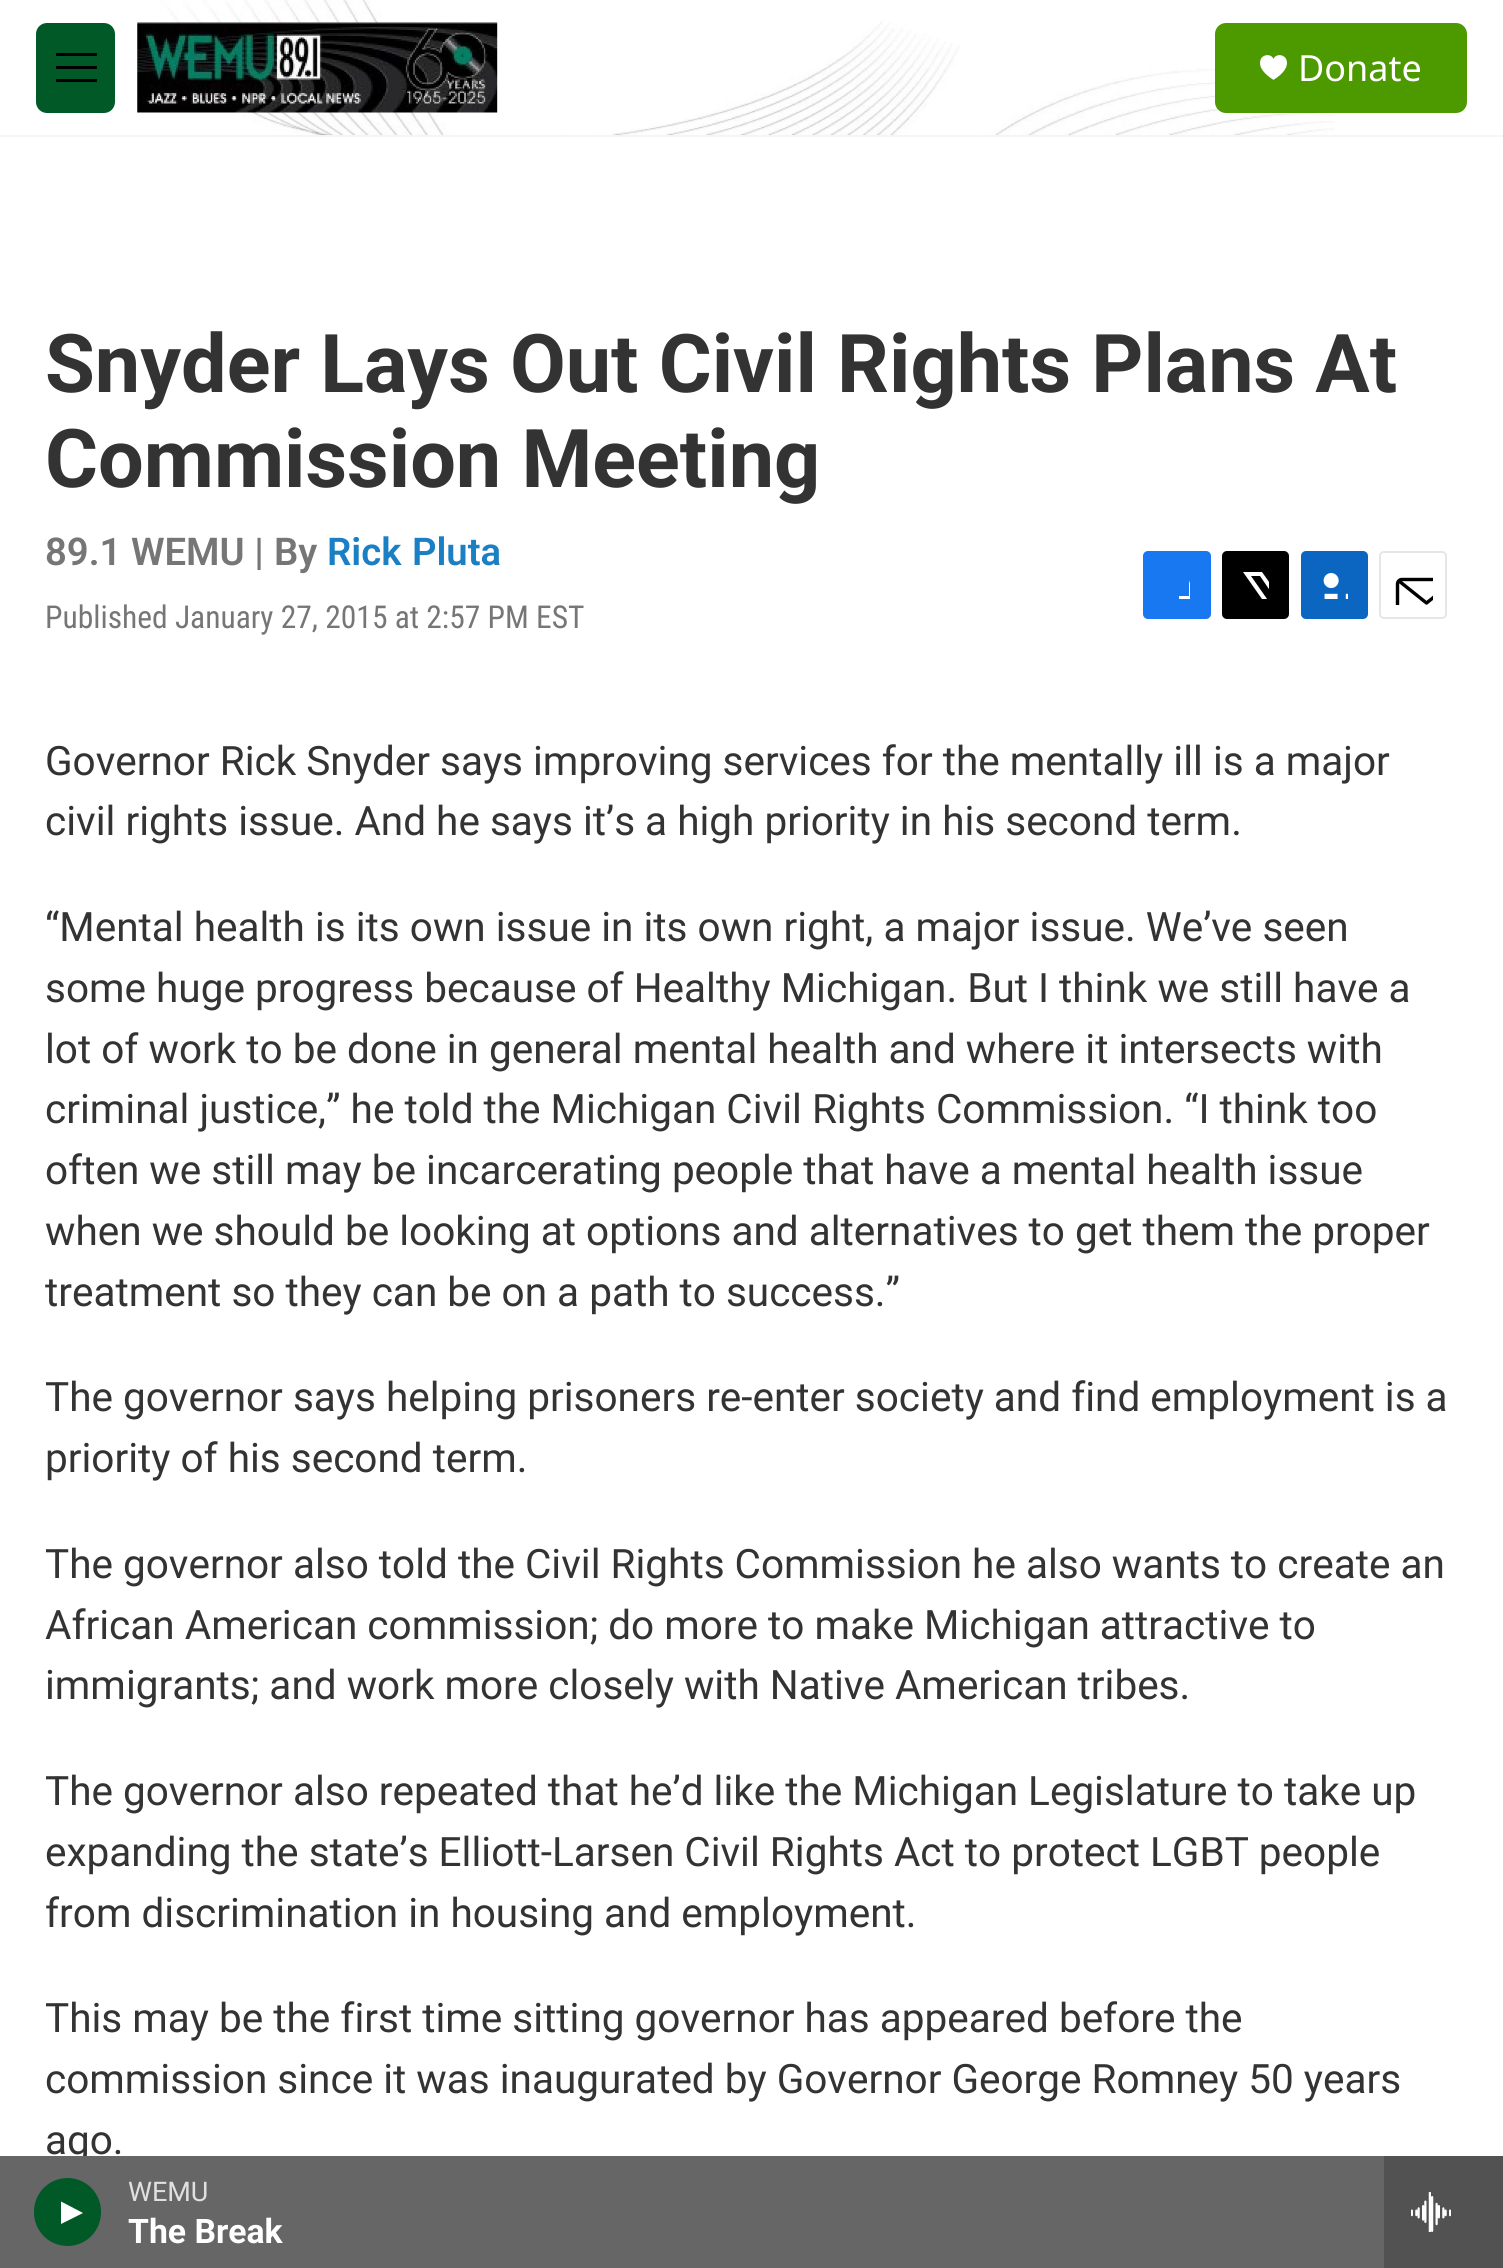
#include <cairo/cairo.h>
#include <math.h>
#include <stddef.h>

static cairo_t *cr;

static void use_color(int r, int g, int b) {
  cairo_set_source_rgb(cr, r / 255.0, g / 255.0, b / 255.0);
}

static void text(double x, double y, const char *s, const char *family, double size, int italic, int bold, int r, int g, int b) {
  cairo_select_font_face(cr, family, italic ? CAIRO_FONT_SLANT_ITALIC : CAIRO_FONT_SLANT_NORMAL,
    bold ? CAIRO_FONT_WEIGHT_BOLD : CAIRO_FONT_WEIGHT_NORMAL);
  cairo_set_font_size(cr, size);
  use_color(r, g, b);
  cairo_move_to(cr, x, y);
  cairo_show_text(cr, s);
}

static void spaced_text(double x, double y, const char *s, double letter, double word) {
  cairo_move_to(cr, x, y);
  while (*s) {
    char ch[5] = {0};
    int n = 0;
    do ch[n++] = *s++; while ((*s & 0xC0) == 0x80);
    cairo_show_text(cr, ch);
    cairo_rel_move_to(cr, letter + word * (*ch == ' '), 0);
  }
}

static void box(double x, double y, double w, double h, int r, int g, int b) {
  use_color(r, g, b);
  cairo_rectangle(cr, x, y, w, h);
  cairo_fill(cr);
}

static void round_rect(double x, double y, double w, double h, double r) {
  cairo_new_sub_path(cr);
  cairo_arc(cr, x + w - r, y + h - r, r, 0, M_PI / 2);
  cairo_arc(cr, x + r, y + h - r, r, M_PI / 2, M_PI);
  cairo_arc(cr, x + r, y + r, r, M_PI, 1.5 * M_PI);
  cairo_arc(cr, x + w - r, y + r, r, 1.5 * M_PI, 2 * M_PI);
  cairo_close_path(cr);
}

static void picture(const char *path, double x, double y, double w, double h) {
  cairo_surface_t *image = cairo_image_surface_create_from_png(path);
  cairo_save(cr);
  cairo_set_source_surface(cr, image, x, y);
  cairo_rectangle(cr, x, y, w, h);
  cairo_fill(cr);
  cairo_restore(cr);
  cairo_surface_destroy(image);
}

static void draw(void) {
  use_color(255, 255, 255);
  cairo_paint(cr);
  box(0, 135, 1503, 2, 245, 245, 245);
  picture("img_01.png", 158, 0, 1177, 135);
  use_color(2, 89, 40);
  round_rect(36, 23, 79, 90, 11);
  cairo_fill(cr);
  use_color(0, 0, 0);
  cairo_set_fill_rule(cr, CAIRO_FILL_RULE_EVEN_ODD);
  cairo_new_path(cr);
  cairo_move_to(cr, 56, 69);
  cairo_line_to(cr, 56, 66);
  cairo_line_to(cr, 97, 66);
  cairo_line_to(cr, 97, 69);
  cairo_close_path(cr);
  cairo_move_to(cr, 56, 56);
  cairo_line_to(cr, 56, 53);
  cairo_line_to(cr, 97, 53);
  cairo_line_to(cr, 97, 56);
  cairo_close_path(cr);
  cairo_move_to(cr, 56, 82);
  cairo_line_to(cr, 56, 79);
  cairo_line_to(cr, 97, 79);
  cairo_line_to(cr, 97, 82);
  cairo_close_path(cr);
  cairo_fill(cr);
  picture("img_02.png", 137, 22, 361, 91);
  use_color(77, 153, 0);
  round_rect(1215, 23, 252, 90, 11);
  cairo_fill(cr);
  picture("img_03.png", 1260, 55, 27, 25);
  box(1384, 2156, 119, 112, 82, 82, 82);
  picture("img_04.png", 1411, 2192, 40, 40);
  use_color(23, 120, 242);
  round_rect(1143, 551, 68, 68, 5);
  cairo_fill(cr);
  cairo_save(cr);
  cairo_set_fill_rule(cr, CAIRO_FILL_RULE_WINDING);
  cairo_rectangle(cr, 1163, 572, 27, 27);
  cairo_clip(cr);
  use_color(255, 255, 255);
  cairo_new_path(cr);
  cairo_move_to(cr, 1201, 619);
  cairo_line_to(cr, 1189, 619);
  cairo_line_to(cr, 1189, 608);
  cairo_line_to(cr, 1179, 608);
  cairo_line_to(cr, 1179, 596);
  cairo_line_to(cr, 1189, 596);
  cairo_line_to(cr, 1189, 584);
  cairo_curve_to(cr, 1191, 572, 1202, 571, 1211, 573);
  cairo_line_to(cr, 1211, 583);
  cairo_curve_to(cr, 1199, 583, 1201, 586, 1201, 596);
  cairo_line_to(cr, 1211, 596);
  cairo_line_to(cr, 1210, 608);
  cairo_line_to(cr, 1201, 608);
  cairo_close_path(cr);
  cairo_fill(cr);
  cairo_restore(cr);
  use_color(0, 0, 0);
  round_rect(1222, 551, 67, 68, 5);
  cairo_fill(cr);
  cairo_save(cr);
  cairo_set_fill_rule(cr, CAIRO_FILL_RULE_WINDING);
  cairo_rectangle(cr, 1242, 572, 27, 27);
  cairo_clip(cr);
  use_color(255, 255, 255);
  cairo_new_path(cr);
  cairo_move_to(cr, 1282, 600);
  cairo_line_to(cr, 1289, 610);
  cairo_curve_to(cr, 1289, 612, 1289, 615, 1288, 617);
  cairo_line_to(cr, 1260, 576);
  cairo_line_to(cr, 1251, 576);
  cairo_line_to(cr, 1281, 619);
  cairo_line_to(cr, 1275, 619);
  cairo_line_to(cr, 1271, 613);
  cairo_line_to(cr, 1266, 619);
  cairo_line_to(cr, 1260, 619);
  cairo_line_to(cr, 1269, 609);
  cairo_line_to(cr, 1243, 572);
  cairo_line_to(cr, 1262, 572);
  cairo_line_to(cr, 1279, 596);
  cairo_line_to(cr, 1289, 585);
  cairo_line_to(cr, 1289, 592);
  cairo_close_path(cr);
  cairo_fill(cr);
  cairo_restore(cr);
  use_color(10, 102, 193);
  round_rect(1301, 551, 67, 68, 5);
  cairo_fill(cr);
  picture("img_05.png", 1323, 573, 25, 26);
  round_rect(1380, 552, 66, 66, 4);
  use_color(230, 230, 230);
  cairo_stroke(cr);
  cairo_save(cr);
  cairo_set_fill_rule(cr, CAIRO_FILL_RULE_WINDING);
  cairo_rectangle(cr, 1393, 565, 40, 40);
  cairo_clip(cr);
  cairo_new_path(cr);
  cairo_move_to(cr, 1455.5, 614);
  cairo_curve_to(cr, 1455.5, 616.5, 1453.5, 618.5, 1451.5, 618.5);
  cairo_line_to(cr, 1401.5, 618.5);
  cairo_curve_to(cr, 1399.5, 618.5, 1397.5, 616.5, 1397.5, 614);
  cairo_line_to(cr, 1397.5, 584);
  cairo_curve_to(cr, 1397.5, 581.5, 1399.5, 579.5, 1401.5, 579.5);
  cairo_line_to(cr, 1451.5, 579.5);
  cairo_curve_to(cr, 1453.5, 579.5, 1455.5, 581.5, 1455.5, 584);
  cairo_close_path(cr);
  cairo_move_to(cr, 1454, 581);
  cairo_line_to(cr, 1426.5, 603);
  cairo_line_to(cr, 1399, 581);
  use_color(0, 0, 0);
  cairo_set_line_width(cr, 3.4);
  cairo_set_line_cap(cr, CAIRO_LINE_CAP_ROUND);
  cairo_set_line_join(cr, CAIRO_LINE_JOIN_ROUND);
  cairo_stroke(cr);
  cairo_restore(cr);
  text(1298, 81, "Donate", "Noto Sans", 36, 0, 0, 255, 255, 255);
  text(45, 392, "Snyder Lays Out Civil Rights Plans At", "Roboto", 81, 0, 1, 51, 51, 51);
  text(45, 487, "Commission Meeting", "Roboto", 81, 0, 1, 51, 51, 51);
  text(45, 565, "89.1 WEMU |", "Roboto SemiBold", 38.25, 0, 0, 118, 118, 118);
  text(274, 565, "By", "Roboto SemiBold", 38.25, 0, 0, 118, 118, 118);
  use_color(26, 127, 195);
  spaced_text(327, 565, "Rick Pluta", 0, 1);
  text(45, 628, "Published January 27, 2015 at 2:57 PM EST", "Roboto Condensed", 31.5, 0, 0, 118, 118, 118);
  text(45, 775, "Governor Rick Snyder says improving services for the mentally ill is a major", "Roboto", 40.5, 0, 0, 51, 51, 51);
  text(45, 835, "civil rights issue. And he says it’s a high priority in his second term.", "Roboto", 40.5, 0, 0, 51, 51, 51);
  text(45, 941, "“Mental health is its own issue in its own right, a major issue. We’ve seen", "Roboto", 40.5, 0, 0, 51, 51, 51);
  text(45, 1002, "some huge progress because of Healthy Michigan. But I think we still have a", "Roboto", 40.5, 0, 0, 51, 51, 51);
  text(45, 1063, "lot of work to be done in general mental health and where it intersects with", "Roboto", 40.5, 0, 0, 51, 51, 51);
  text(45, 1123, "criminal justice,” he told the Michigan Civil Rights Commission. “I think too", "Roboto", 40.5, 0, 0, 51, 51, 51);
  text(45, 1184, "often we still may be incarcerating people that have a mental health issue", "Roboto", 40.5, 0, 0, 51, 51, 51);
  text(45, 1245, "when we should be looking at options and alternatives to get them the proper", "Roboto", 40.5, 0, 0, 51, 51, 51);
  text(45, 1306, "treatment so they can be on a path to success.”", "Roboto", 40.5, 0, 0, 51, 51, 51);
  text(45, 1411, "The governor says helping prisoners re-enter society and find employment is a", "Roboto", 40.5, 0, 0, 51, 51, 51);
  text(45, 1472, "priority of his second term.", "Roboto", 40.5, 0, 0, 51, 51, 51);
  text(45, 1578, "The governor also told the Civil Rights Commission he also wants to create an", "Roboto", 40.5, 0, 0, 51, 51, 51);
  text(45, 1639, "African American commission; do more to make Michigan attractive to", "Roboto", 40.5, 0, 0, 51, 51, 51);
  text(45, 1699, "immigrants; and work more closely with Native American tribes.", "Roboto", 40.5, 0, 0, 51, 51, 51);
  text(45, 1805, "The governor also repeated that he’d like the Michigan Legislature to take up", "Roboto", 40.5, 0, 0, 51, 51, 51);
  text(45, 1866, "expanding the state’s Elliott-Larsen Civil Rights Act to protect LGBT people", "Roboto", 40.5, 0, 0, 51, 51, 51);
  text(45, 1927, "from discrimination in housing and employment.", "Roboto", 40.5, 0, 0, 51, 51, 51);
  text(45, 2032, "This may be the first time sitting governor has appeared before the", "Roboto", 40.5, 0, 0, 51, 51, 51);
  text(45, 2093, "commission since it was inaugurated by Governor George Romney 50 years", "Roboto", 40.5, 0, 0, 51, 51, 51);
  text(45, 2154, "ago.", "Roboto", 40.5, 0, 0, 51, 51, 51);
  box(0, 2156, 1384, 112, 102, 102, 102);
  text(128, 2201, "WEMU", "Roboto", 27, 0, 0, 224, 224, 224);
  text(128, 2243, "The Break", "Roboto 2", 33.75, 0, 1, 255, 255, 255);
  use_color(2, 89, 40);
  round_rect(34, 2178, 67, 68, 33.5);
  cairo_fill(cr);
  use_color(255, 255, 255);
  cairo_set_fill_rule(cr, CAIRO_FILL_RULE_WINDING);
  cairo_new_path(cr);
  cairo_move_to(cr, 61, 2201.5);
  cairo_line_to(cr, 83, 2213);
  cairo_line_to(cr, 61, 2224);
  cairo_close_path(cr);
  cairo_fill(cr);
}

int main(void) {
  cairo_surface_t *surface = cairo_image_surface_create(CAIRO_FORMAT_RGB24, 1503, 2268);
  cr = cairo_create(surface);
  cairo_font_options_t *options = cairo_font_options_create();
  cairo_font_options_set_hint_metrics(options, CAIRO_HINT_METRICS_OFF);
  cairo_font_options_set_hint_style(options, CAIRO_HINT_STYLE_NONE);
  cairo_set_font_options(cr, options);
  cairo_set_miter_limit(cr, 4);
  draw();
  cairo_surface_write_to_png(surface, "out.png");
  cairo_font_options_destroy(options);
  cairo_destroy(cr);
  cairo_surface_destroy(surface);
  return 0;
}
